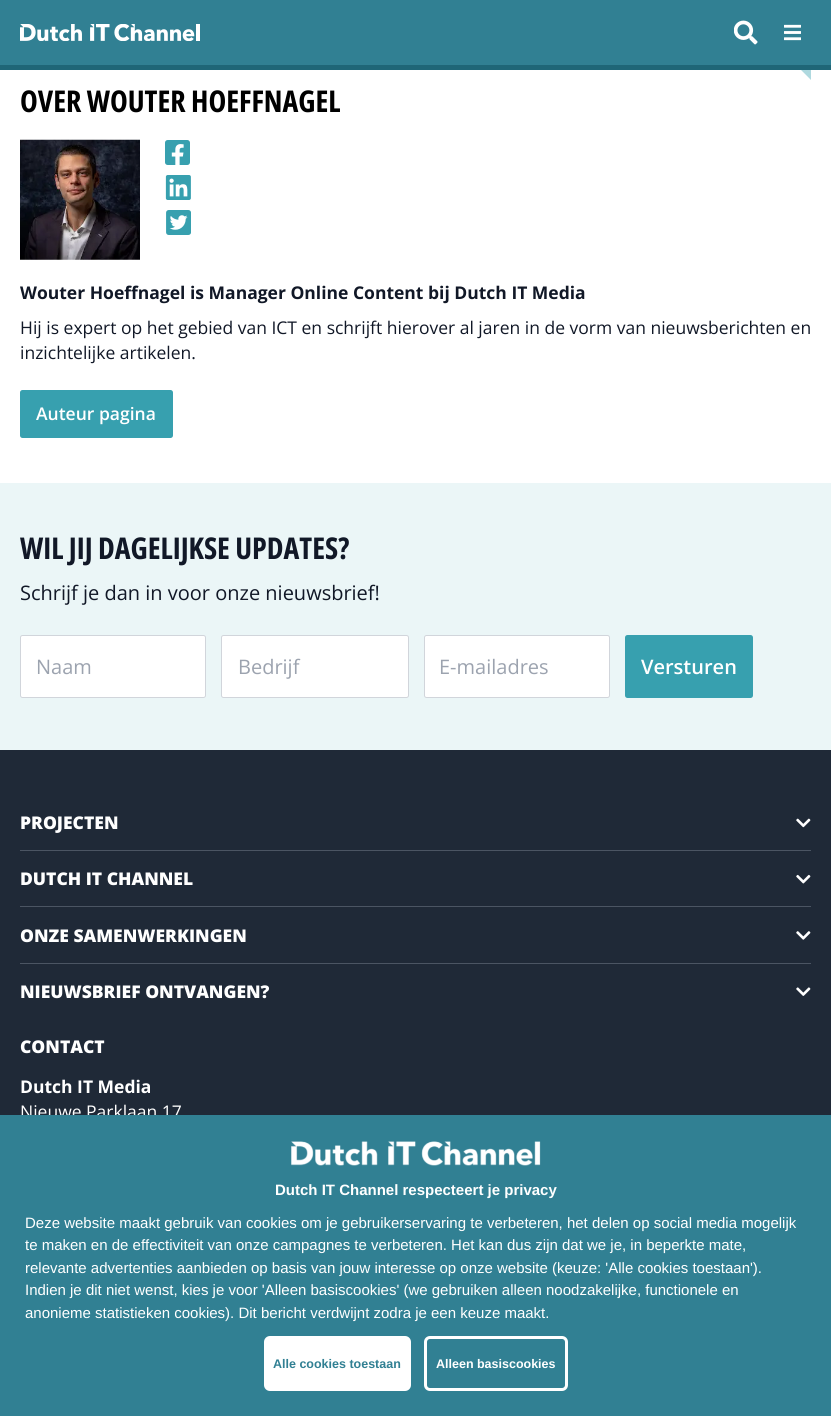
#include <cairo/cairo.h>
#include <math.h>
#include <stddef.h>

static cairo_t *cr;

static void use_color(int r, int g, int b) {
  cairo_set_source_rgb(cr, r / 255.0, g / 255.0, b / 255.0);
}

static void text(double x, double y, const char *s, const char *family, double size, int italic, int bold, int r, int g, int b) {
  cairo_select_font_face(cr, family, italic ? CAIRO_FONT_SLANT_ITALIC : CAIRO_FONT_SLANT_NORMAL,
    bold ? CAIRO_FONT_WEIGHT_BOLD : CAIRO_FONT_WEIGHT_NORMAL);
  cairo_set_font_size(cr, size);
  use_color(r, g, b);
  cairo_move_to(cr, x, y);
  cairo_show_text(cr, s);
}

static void box(double x, double y, double w, double h, int r, int g, int b) {
  use_color(r, g, b);
  cairo_rectangle(cr, x, y, w, h);
  cairo_fill(cr);
}

static void round_rect(double x, double y, double w, double h, double r) {
  cairo_new_sub_path(cr);
  cairo_arc(cr, x + w - r, y + h - r, r, 0, M_PI / 2);
  cairo_arc(cr, x + r, y + h - r, r, M_PI / 2, M_PI);
  cairo_arc(cr, x + r, y + r, r, M_PI, 1.5 * M_PI);
  cairo_arc(cr, x + w - r, y + r, r, 1.5 * M_PI, 2 * M_PI);
  cairo_close_path(cr);
}

static void picture(const char *path, double x, double y, double w, double h) {
  cairo_surface_t *image = cairo_image_surface_create_from_png(path);
  cairo_save(cr);
  cairo_set_source_surface(cr, image, x, y);
  cairo_rectangle(cr, x, y, w, h);
  cairo_fill(cr);
  cairo_restore(cr);
  cairo_surface_destroy(image);
}

static void draw(void) {
  use_color(255, 255, 255);
  cairo_paint(cr);
  use_color(175, 217, 223);
  cairo_new_path(cr);
  cairo_move_to(cr, 811, 60);
  cairo_line_to(cr, 811, 80);
  cairo_line_to(cr, 791, 60);
  cairo_close_path(cr);
  cairo_fill(cr);
  box(0, 0, 831, 65, 49, 128, 147);
  box(0, 65, 831, 5, 31, 102, 119);
  picture("img_01.png", 20, 24, 180, 17);
  picture("img_02.png", 734, 20, 24, 25);
  picture("img_03.png", 784, 24, 17, 17);
  picture("img_04.png", 20, 139, 120, 121);
  picture("img_05.png", 165, 140, 25, 25);
  picture("img_06.png", 165, 175, 26, 25);
  picture("img_07.png", 166, 210, 25, 25);
  use_color(55, 160, 175);
  round_rect(20, 390, 153, 48, 2.5);
  cairo_fill(cr);
  box(0, 483, 831, 267, 235, 246, 247);
  use_color(255, 255, 255);
  round_rect(20.5, 635.5, 185, 62, 2);
  cairo_fill_preserve(cr);
  use_color(209, 213, 219);
  cairo_set_line_width(cr, 1);
  cairo_stroke(cr);
  use_color(255, 255, 255);
  round_rect(221.5, 635.5, 187, 62, 2);
  cairo_fill_preserve(cr);
  use_color(209, 213, 219);
  cairo_stroke(cr);
  use_color(255, 255, 255);
  round_rect(424.5, 635.5, 185, 62, 2);
  cairo_fill_preserve(cr);
  use_color(209, 213, 219);
  cairo_stroke(cr);
  use_color(55, 160, 175);
  round_rect(625, 635, 128, 63, 2.5);
  cairo_fill(cr);
  box(0, 750, 831, 365, 31, 41, 55);
  box(20, 850, 791, 1, 75, 85, 99);
  picture("img_08.png", 796, 818, 15, 10);
  box(20, 906, 791, 1, 75, 85, 99);
  picture("img_09.png", 796, 874, 15, 10);
  box(20, 963, 791, 1, 75, 85, 99);
  picture("img_10.png", 796, 931, 15, 9);
  picture("img_11.png", 796, 987, 15, 9);
  text(20, 112, "OVER WOUTER HOEFFNAGEL", "Open Sans Condensed", 30, 0, 1, 0, 0, 0);
  text(20, 299, "Wouter Hoeffnagel is Manager Online Content bij Dutch IT Media", "Open Sans", 17.5, 0, 1, 17, 24, 39);
  text(20, 334, "Hij is expert op het gebied van ICT en schrijft hierover al jaren in de vorm van nieuwsberichten en", "Open Sans", 17.5, 0, 0, 17, 24, 39);
  text(20, 359, "inzichtelijke artikelen.", "Open Sans", 17.5, 0, 0, 17, 24, 39);
  text(36, 420, "Auteur pagina", "Open Sans SemiBold", 17.5, 0, 0, 255, 255, 255);
  text(20, 559, "WIL JIJ DAGELIJKSE UPDATES?", "Open Sans Condensed", 30, 0, 1, 17, 24, 39);
  text(20, 600, "Schrijf je dan in voor onze nieuwsbrief!", "Open Sans", 20, 0, 0, 17, 24, 39);
  text(36, 674, "Naam", "Open Sans", 20, 0, 0, 156, 163, 175);
  text(238, 674, "Bedrijf", "Open Sans", 20, 0, 0, 156, 163, 175);
  text(439, 674, "E-mailadres", "Open Sans", 20, 0, 0, 156, 163, 175);
  text(641, 674, "Versturen", "Open Sans SemiBold", 20, 0, 0, 255, 255, 255);
  text(20, 829, "PROJECTEN", "Open Sans ExtraBold", 17.5, 0, 0, 255, 255, 255);
  text(20, 885, "DUTCH IT CHANNEL", "Open Sans ExtraBold", 17.5, 0, 0, 255, 255, 255);
  text(20, 942, "ONZE SAMENWERKINGEN", "Open Sans ExtraBold", 17.5, 0, 0, 255, 255, 255);
  text(20, 998, "NIEUWSBRIEF ONTVANGEN?", "Open Sans ExtraBold", 17.5, 0, 0, 255, 255, 255);
  text(20, 1053, "CONTACT", "Open Sans ExtraBold", 17.5, 0, 0, 255, 255, 255);
  text(20, 1093, "Dutch IT Media", "Open Sans", 17.5, 0, 1, 255, 255, 255);
  text(20, 1118, "Nieuwe Parklaan 17", "Open Sans", 17.5, 0, 0, 255, 255, 255);
  box(0, 1115, 831, 301, 49, 128, 147);
  picture("img_12.png", 291, 1141, 250, 25);
  text(275, 1195, "Dutch IT Channel respecteert je privacy", "Liberation Sans", 15, 0, 1, 255, 255, 255);
  text(25, 1228, "Deze website maakt gebruik van cookies om je gebruikerservaring te verbeteren, het delen op social media mogelijk", "Liberation Sans", 15, 0, 0, 255, 255, 255);
  text(25, 1250, "te maken en de effectiviteit van onze campagnes te verbeteren. Het kan dus zijn dat we je, in beperkte mate,", "Liberation Sans", 15, 0, 0, 255, 255, 255);
  text(25, 1273, "relevante advertenties aanbieden op basis van jouw interesse op onze website (keuze: 'Alle cookies toestaan').", "Liberation Sans", 15, 0, 0, 255, 255, 255);
  text(25, 1295, "Indien je dit niet wenst, kies je voor 'Alleen basiscookies' (we gebruiken alleen noodzakelijke, functionele en", "Liberation Sans", 15, 0, 0, 255, 255, 255);
  text(25, 1318, "anonieme statistieken cookies). Dit bericht verdwijnt zodra je een keuze maakt.", "Liberation Sans", 15, 0, 0, 255, 255, 255);
  round_rect(264, 1336, 147, 55, 6);
  cairo_fill(cr);
  text(273, 1368, "Alle cookies toestaan", "Liberation Sans", 12.5, 0, 1, 49, 128, 147);
  round_rect(425.5, 1337.5, 141, 52, 4.5);
  use_color(255, 255, 255);
  cairo_set_line_width(cr, 3);
  cairo_stroke(cr);
  text(436, 1368, "Alleen basiscookies", "Liberation Sans", 12.5, 0, 1, 255, 255, 255);
}

int main(void) {
  cairo_surface_t *surface = cairo_image_surface_create(CAIRO_FORMAT_RGB24, 831, 1416);
  cr = cairo_create(surface);
  cairo_font_options_t *options = cairo_font_options_create();
  cairo_font_options_set_hint_metrics(options, CAIRO_HINT_METRICS_OFF);
  cairo_font_options_set_hint_style(options, CAIRO_HINT_STYLE_NONE);
  cairo_set_font_options(cr, options);
  cairo_set_miter_limit(cr, 4);
  draw();
  cairo_surface_write_to_png(surface, "out.png");
  cairo_font_options_destroy(options);
  cairo_destroy(cr);
  cairo_surface_destroy(surface);
  return 0;
}
